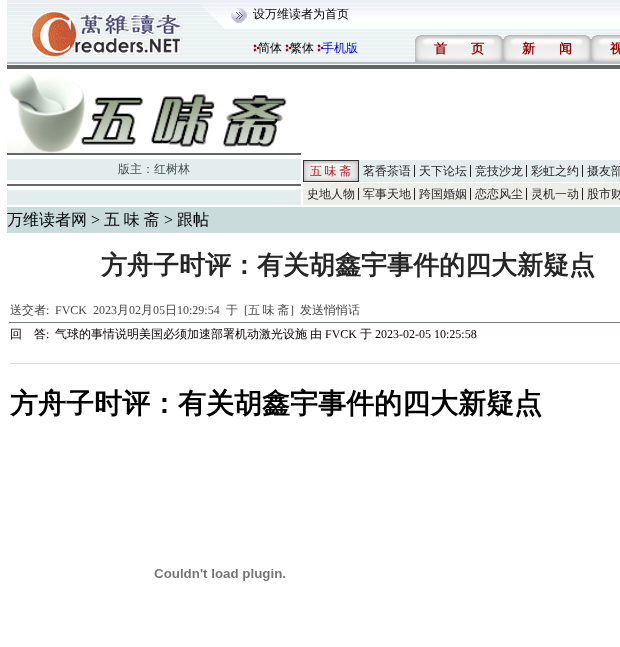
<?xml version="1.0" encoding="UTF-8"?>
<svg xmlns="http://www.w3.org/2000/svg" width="620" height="647">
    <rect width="100%" height="100%" fill="#FFFFFF"/>
    <image x="7" y="0" width="613" height="62" href="img_01.png"/>
    <image x="7" y="4" width="240" height="54" href="img_02.png"/>
    <text x="253" y="18" font-family="WenQuanYi Zen Hei" font-size="12" font-weight="500" fill="#000000">设万维读者为首页</text>
    <image x="253" y="44" width="7" height="8" href="img_03.png"/>
    <text x="258" y="52" font-family="WenQuanYi Zen Hei" font-size="12" font-weight="500" fill="#000000">简体</text>
    <image x="285" y="44" width="7" height="8" href="img_03.png"/>
    <text x="290" y="52" font-family="WenQuanYi Zen Hei" font-size="12" font-weight="500" fill="#000000">繁体</text>
    <image x="317" y="44" width="7" height="8" href="img_03.png"/>
    <text x="322" y="52" font-family="WenQuanYi Zen Hei" font-size="12" font-weight="500" fill="#0000FF">手机版</text>
    <image x="415" y="35" width="88" height="27" href="img_04.png"/>
    <text x="434" y="53" font-family="WenQuanYi Zen Hei" font-size="13" font-weight="700" fill="#990000">首</text>
    <text x="471" y="53" font-family="WenQuanYi Zen Hei" font-size="13" font-weight="700" fill="#990000">页</text>
    <image x="503" y="35" width="88" height="27" href="img_04.png"/>
    <text x="522" y="53" font-family="WenQuanYi Zen Hei" font-size="13" font-weight="700" fill="#990000">新</text>
    <text x="559" y="53" font-family="WenQuanYi Zen Hei" font-size="13" font-weight="700" fill="#990000">闻</text>
    <image x="591" y="35" width="29" height="27" href="img_05.png"/>
    <text x="610" y="53" font-family="WenQuanYi Zen Hei" font-size="13" font-weight="700" fill="#990000">视</text>
    <rect x="7" y="62" width="613" height="2" fill="#B7BFCA"/>
    <rect x="7" y="65" width="613" height="4" fill="#636767"/>
    <image x="7" y="73" width="280" height="80" href="img_06.png"/>
    <rect x="7" y="153" width="294" height="2" fill="#636767"/>
    <rect x="7" y="159" width="294" height="21" fill="#E3EDED"/>
    <text x="118" y="173" font-family="WenQuanYi Zen Hei" font-size="12" font-weight="500" fill="#455151">版主：红树林</text>
    <rect x="7" y="184" width="294" height="2" fill="#636767"/>
    <rect x="7" y="190" width="294" height="15" fill="#E3EDED"/>
    <rect x="359" y="160" width="261" height="22" fill="#E3EDED"/>
    <image x="303" y="160" width="56" height="22" href="img_07.png"/>
    <text x="310" y="175" word-spacing="-1" font-family="WenQuanYi Zen Hei" font-size="12" font-weight="500" fill="#B81515">五 味 斋</text>
    <rect x="414" y="165" width="1" height="12" fill="#231E21"/>
    <text x="363" y="175" font-family="WenQuanYi Zen Hei" font-size="12" font-weight="500" fill="#231E21">茗香茶语</text>
    <rect x="470" y="165" width="1" height="12" fill="#231E21"/>
    <text x="419" y="175" font-family="WenQuanYi Zen Hei" font-size="12" font-weight="500" fill="#231E21">天下论坛</text>
    <rect x="526" y="165" width="1" height="12" fill="#231E21"/>
    <text x="475" y="175" font-family="WenQuanYi Zen Hei" font-size="12" font-weight="500" fill="#231E21">竞技沙龙</text>
    <rect x="582" y="165" width="1" height="12" fill="#231E21"/>
    <text x="531" y="175" font-family="WenQuanYi Zen Hei" font-size="12" font-weight="500" fill="#231E21">彩虹之约</text>
    <text x="587" y="175" font-family="WenQuanYi Zen Hei" font-size="12" font-weight="500" fill="#231E21">摄友部</text>
    <rect x="303" y="183" width="317" height="22" fill="#EEEEE8"/>
    <rect x="358" y="188" width="1" height="12" fill="#231E21"/>
    <text x="307" y="198" font-family="WenQuanYi Zen Hei" font-size="12" font-weight="500" fill="#231E21">史地人物</text>
    <rect x="414" y="188" width="1" height="12" fill="#231E21"/>
    <text x="363" y="198" font-family="WenQuanYi Zen Hei" font-size="12" font-weight="500" fill="#231E21">军事天地</text>
    <rect x="470" y="188" width="1" height="12" fill="#231E21"/>
    <text x="419" y="198" font-family="WenQuanYi Zen Hei" font-size="12" font-weight="500" fill="#231E21">跨国婚姻</text>
    <rect x="526" y="188" width="1" height="12" fill="#231E21"/>
    <text x="475" y="198" font-family="WenQuanYi Zen Hei" font-size="12" font-weight="500" fill="#231E21">恋恋风尘</text>
    <rect x="582" y="188" width="1" height="12" fill="#231E21"/>
    <text x="531" y="198" font-family="WenQuanYi Zen Hei" font-size="12" font-weight="500" fill="#231E21">灵机一动</text>
    <text x="587" y="198" font-family="WenQuanYi Zen Hei" font-size="12" font-weight="500" fill="#231E21">股市财</text>
    <rect x="7" y="207" width="613" height="26" fill="#C9DBDB"/>
    <text x="7" y="225" font-family="WenQuanYi Zen Hei" font-size="16" font-weight="500" fill="#000000">万维读者网</text>
    <text x="91" y="225" font-family="Liberation Serif" font-size="16" fill="#000000">&gt;</text>
    <text x="104" y="225" word-spacing="-1" font-family="WenQuanYi Zen Hei" font-size="16" font-weight="500" fill="#000000">五 味 斋</text>
    <text x="164" y="225" font-family="Liberation Serif" font-size="16" fill="#000000">&gt;</text>
    <text x="177" y="225" font-family="WenQuanYi Zen Hei" font-size="16" font-weight="500" fill="#000000">跟帖</text>
    <text x="101" y="274" font-family="WenQuanYi Zen Hei" font-size="26" font-weight="700" fill="#252525">方舟子时评：有关胡鑫宇事件的四大新疑点</text>
    <text x="10" y="314" font-family="WenQuanYi Zen Hei" font-size="12" font-weight="500" fill="#464646">送交者</text>
    <text x="46" y="314" font-family="Liberation Serif" font-size="12" fill="#464646">:</text>
    <text x="55" y="314" font-family="Liberation Serif" font-size="12" fill="#464646">FVCK</text>
    <text x="93" y="314" font-family="Liberation Serif" font-size="12" fill="#464646">2023</text>
    <text x="117" y="314" font-family="WenQuanYi Zen Hei" font-size="12" font-weight="500" fill="#464646">月</text>
    <text x="129" y="314" font-family="Liberation Serif" font-size="12" fill="#464646">02</text>
    <text x="141" y="314" font-family="WenQuanYi Zen Hei" font-size="12" font-weight="500" fill="#464646">月</text>
    <text x="153" y="314" font-family="Liberation Serif" font-size="12" fill="#464646">05</text>
    <text x="165" y="314" font-family="WenQuanYi Zen Hei" font-size="12" font-weight="500" fill="#464646">日</text>
    <text x="177" y="314" font-family="Liberation Serif" font-size="12" fill="#464646">10:29:54</text>
    <text x="226" y="314" font-family="WenQuanYi Zen Hei" font-size="12" font-weight="500" fill="#464646">于</text>
    <text x="244" y="314" font-family="Liberation Serif" font-size="12" fill="#464646">[</text>
    <text x="248" y="314" word-spacing="-1" font-family="WenQuanYi Zen Hei" font-size="12" font-weight="500" fill="#464646">五 味 斋</text>
    <text x="290" y="314" font-family="Liberation Serif" font-size="12" fill="#464646">]</text>
    <text x="300" y="314" font-family="WenQuanYi Zen Hei" font-size="12" font-weight="500" fill="#464646">发送悄悄话</text>
    <rect x="9" y="322" width="611" height="1" fill="#788181"/>
    <text x="10" y="338" font-family="WenQuanYi Zen Hei" font-size="12" font-weight="500" fill="#000000">回</text>
    <text x="34" y="338" font-family="WenQuanYi Zen Hei" font-size="12" font-weight="500" fill="#000000">答</text>
    <text x="46" y="338" font-family="Liberation Serif" font-size="12" fill="#000000">:</text>
    <text x="55" y="338" font-family="WenQuanYi Zen Hei" font-size="12" font-weight="500" fill="#000000">气球的事情说明美国必须加速部署机动激光设施</text>
    <text x="310" y="338" font-family="WenQuanYi Zen Hei" font-size="12" font-weight="500" fill="#000000">由</text>
    <text x="325" y="338" font-family="Liberation Serif" font-size="12" fill="#000000">FVCK</text>
    <text x="360" y="338" font-family="WenQuanYi Zen Hei" font-size="12" font-weight="500" fill="#000000">于</text>
    <text x="375" y="338" font-family="Liberation Serif" font-size="12" fill="#000000">2023-02-05 10:25:58</text>
    <rect x="10" y="363" width="610" height="1" fill="#DDDDDD"/>
    <text x="10" y="413" font-family="WenQuanYi Zen Hei" font-size="28" font-weight="700" fill="#000000">方舟子时评：有关胡鑫宇事件的四大新疑点</text>
    <image x="154" y="569" width="131" height="12" href="img_08.png"/>
</svg>
